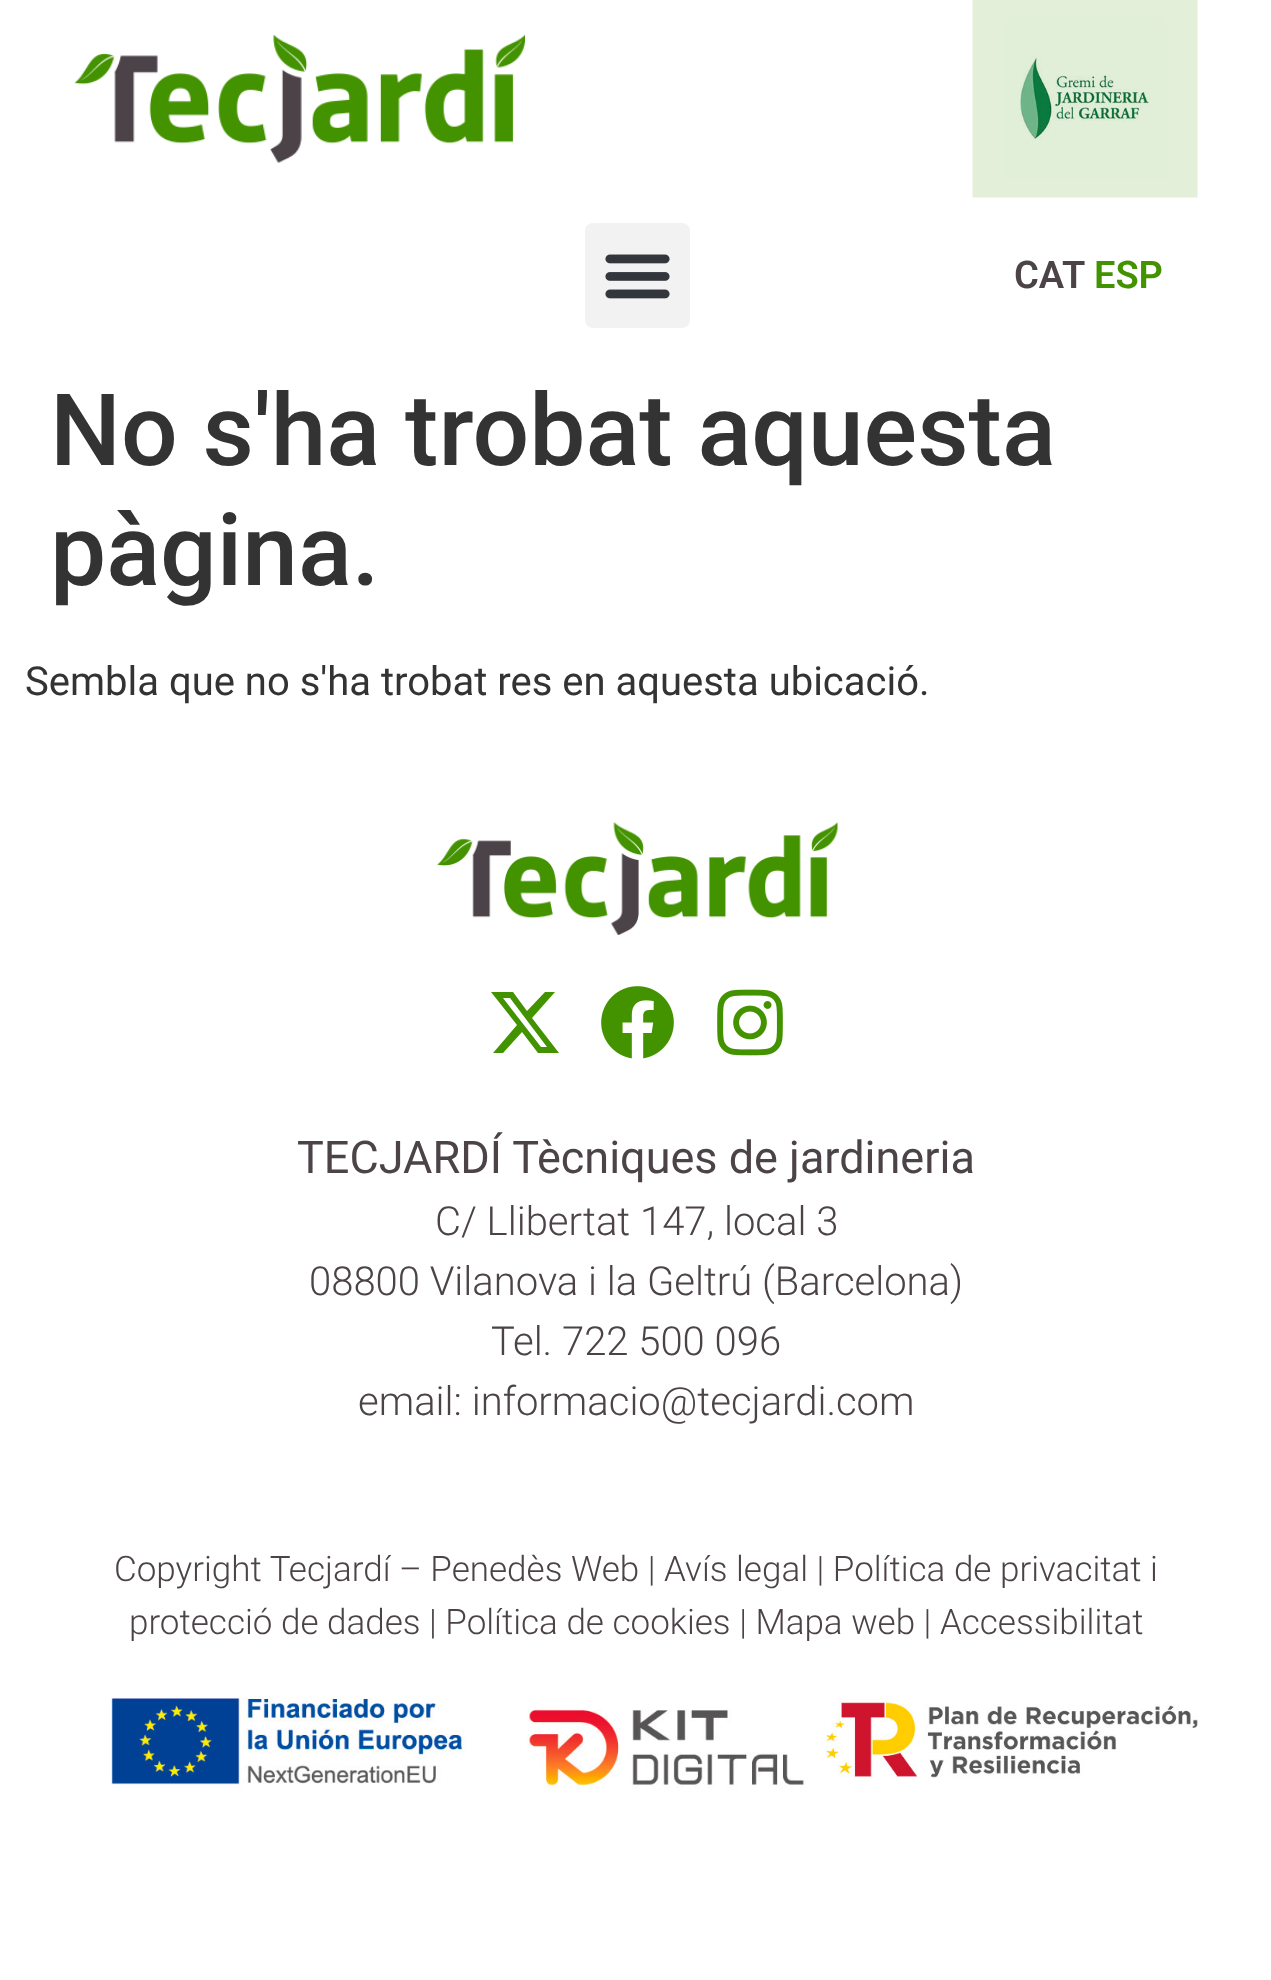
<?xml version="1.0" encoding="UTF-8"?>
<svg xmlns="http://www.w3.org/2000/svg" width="1271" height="1980">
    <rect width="100%" height="100%" fill="#FFFFFF"/>
    <image x="75" y="35" width="450" height="128" href="img_01.png"/>
    <image x="972" y="0" width="226" height="198" href="img_02.png"/>
    <rect x="585" y="223" width="105" height="105" rx="8" fill="#F2F2F2"/>
    <image x="605" y="254" width="65" height="45" href="img_03.png"/>
    <text x="1014" y="288" font-family="Roboto" font-size="38" font-weight="600" fill="#4C4348">CAT</text>
    <text x="1094" y="288" font-family="Roboto" font-size="38" font-weight="600" fill="#439300">ESP</text>
    <text font-family="Roboto" font-size="100" font-weight="500" fill="#333333">
        <tspan x="50" y="465">No s'ha trobat aquesta</tspan>
        <tspan x="50" y="585">pàgina.</tspan>
    </text>
    <text x="25" y="695" font-family="Roboto" font-size="40" fill="#333333">Sembla que no s'ha trobat res en aquesta ubicació.</text>
    <image x="437" y="822" width="401" height="113" href="img_04.png"/>
    <path d="M 545 992 H 555 L 532 1018 L 559 1053 H 538 L 522 1032 L 503 1053 H 493 L 517 1025 L 491 992 H 513 L 527 1011 Z M 541 1047 H 547 L 510 998 H 503 Z" fill="#439300"/>
    <image x="601" y="986" width="73" height="73" href="img_05.png"/>
    <image x="717" y="989" width="66" height="67" href="img_06.png"/>
    <text x="297" y="1173" font-family="Roboto" font-size="45" fill="#4C4348">TECJARDÍ Tècniques de jardineria</text>
    <text x="435" y="1235" font-family="Roboto" font-size="40" font-weight="300" fill="#4C4348">C/ Llibertat 147, local 3</text>
    <text x="309" y="1295" font-family="Roboto" font-size="40" font-weight="300" fill="#4C4348">08800 Vilanova i la Geltrú (Barcelona)</text>
    <text x="491" y="1355" font-family="Roboto" font-size="40" font-weight="300" fill="#4C4348">Tel. 722 500 096</text>
    <text x="358" y="1415" font-family="Roboto" font-size="40" font-weight="300" fill="#4C4348">email: informacio@tecjardi.com</text>
    <text x="114" y="1581" font-family="Roboto" font-size="35" font-weight="300" fill="#4C4348">Copyright Tecjardí – Penedès Web | Avís legal | Política de privacitat i</text>
    <text x="129" y="1634" font-family="Roboto" font-size="35" font-weight="300" fill="#4C4348">protecció de dades | Política de cookies | Mapa web | Accessibilitat</text>
    <image x="110" y="1697" width="1088" height="93" href="img_07.png"/>
</svg>
